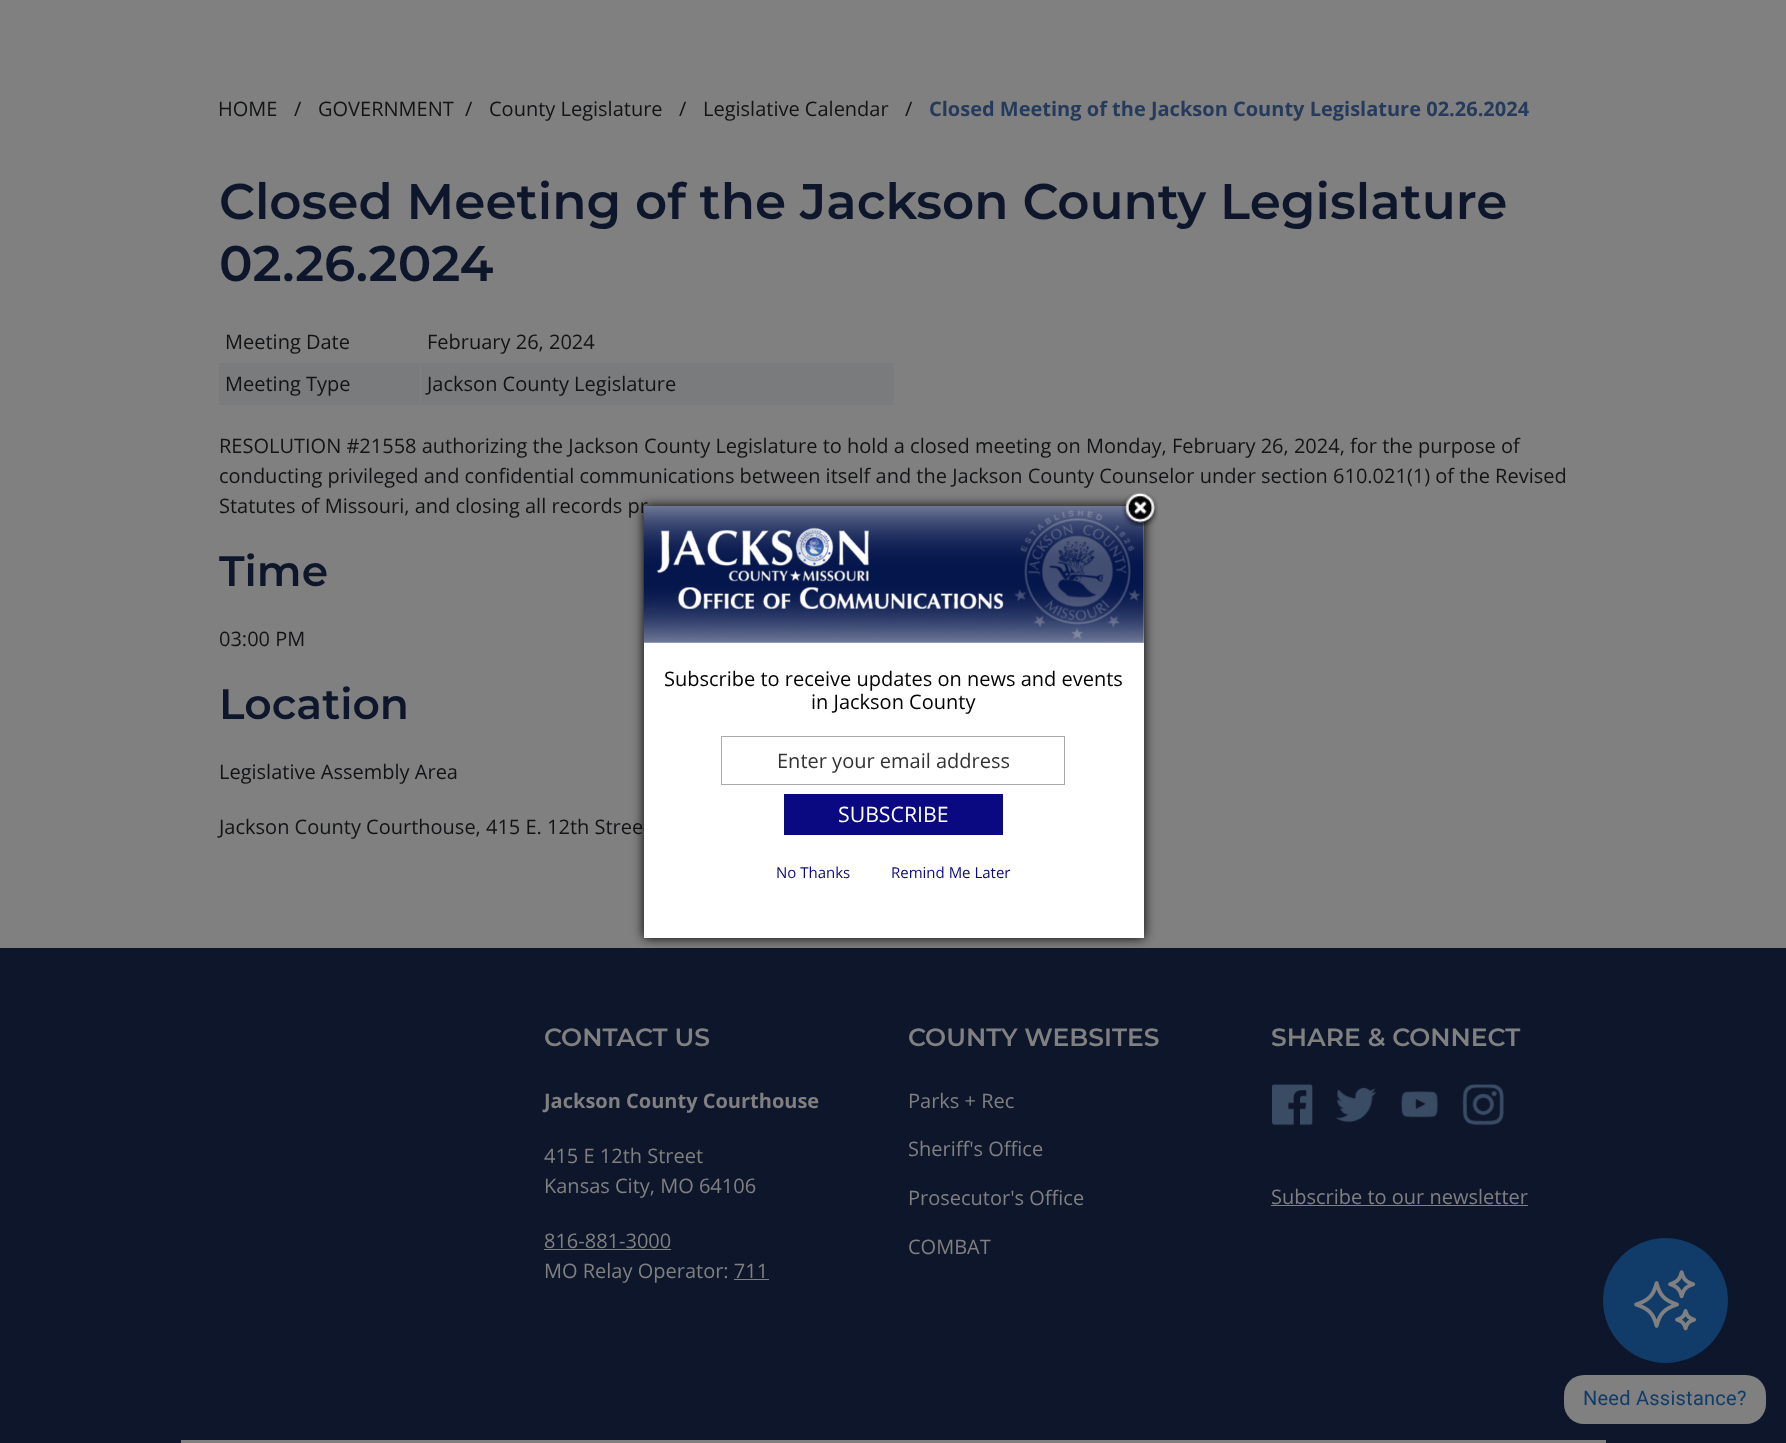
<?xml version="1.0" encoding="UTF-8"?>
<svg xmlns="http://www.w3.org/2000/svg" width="1786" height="1443">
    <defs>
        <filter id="blur1" x="-50%" y="-200%" width="200%" height="500%"><feGaussianBlur stdDeviation="6"/></filter>
    </defs>
    <rect width="100%" height="100%" fill="#808080"/>
    <text x="218" y="116" font-family="Open Sans" font-size="20" fill="#121315">HOME</text>
    <text x="294" y="116" font-family="Open Sans" font-size="20" fill="#121315">/</text>
    <text x="318" y="116" font-family="Open Sans" font-size="20" fill="#121315">GOVERNMENT</text>
    <text x="465" y="116" font-family="Open Sans" font-size="20" fill="#121315">/</text>
    <text x="489" y="116" font-family="Open Sans" font-size="20" fill="#121315">County Legislature</text>
    <text x="679" y="116" font-family="Open Sans" font-size="20" fill="#121315">/</text>
    <text x="703" y="116" font-family="Open Sans" font-size="20" fill="#121315">Legislative Calendar</text>
    <text x="905" y="116" font-family="Open Sans" font-size="20" fill="#121315">/</text>
    <text x="929" y="116" font-family="Open Sans" font-size="20" font-weight="700" fill="#253B5D">Closed Meeting of the Jackson County Legislature 02.26.2024</text>
    <text font-family="Montserrat" font-size="50" font-weight="100" fill="#0D162B">
        <tspan x="219" y="219">Closed Meeting of the Jackson County Legislature</tspan>
        <tspan x="219" y="281">02.26.2024</tspan>
    </text>
    <text x="225" y="349" font-family="Open Sans" font-size="20" fill="#121315">Meeting Date</text>
    <text x="427" y="349" font-family="Open Sans" font-size="20" fill="#121315">February 26, 2024</text>
    <rect x="219" y="363" width="675" height="42" fill="#7A7B7C"/>
    <rect x="420" y="363" width="1" height="42" fill="#808080"/>
    <text x="225" y="391" font-family="Open Sans" font-size="20" fill="#121315">Meeting Type</text>
    <text x="427" y="391" font-family="Open Sans" font-size="20" fill="#121315">Jackson County Legislature</text>
    <text font-family="Open Sans" font-size="20" fill="#121315">
        <tspan x="219" y="453">RESOLUTION #21558 authorizing the Jackson County Legislature to hold a closed meeting on Monday, February 26, 2024, for the purpose of</tspan>
        <tspan x="219" y="483">conducting privileged and confidential communications between itself and the Jackson County Counselor under section 610.021(1) of the Revised</tspan>
        <tspan x="219" y="513">Statutes of Missouri, and closing all records pr</tspan>
    </text>
    <text x="219" y="586" font-family="Montserrat" font-size="42.5" font-weight="100" fill="#0D162B">Time</text>
    <text x="219" y="646" font-family="Open Sans" font-size="20" fill="#121315">03:00 PM</text>
    <text x="219" y="719" font-family="Montserrat" font-size="42.5" font-weight="100" fill="#0D162B">Location</text>
    <text x="219" y="779" font-family="Open Sans" font-size="20" fill="#121315">Legislative Assembly Area</text>
    <text x="219" y="834" font-family="Open Sans" font-size="20" fill="#121315">Jackson County Courthouse, 415 E. 12th Stree</text>
    <rect x="0" y="948" width="1786" height="495" fill="#0D162B"/>
    <text x="544" y="1046" font-family="Montserrat" font-size="25" font-weight="100" fill="#808080">CONTACT US</text>
    <text x="544" y="1108" font-family="Open Sans" font-size="20" font-weight="700" fill="#808080">Jackson County Courthouse</text>
    <text font-family="Open Sans" font-size="20" fill="#808080">
        <tspan x="544" y="1163">415 E 12th Street</tspan>
        <tspan x="544" y="1193">Kansas City, MO 64106</tspan>
    </text>
    <text x="544" y="1248" font-family="Open Sans" font-size="20" fill="#808080">816-881-3000</text>
    <rect x="544" y="1249" width="127" height="1" fill="#808080"/>
    <text x="544" y="1278" font-family="Open Sans" font-size="20" fill="#808080">MO Relay Operator: 711</text>
    <rect x="734" y="1279" width="35" height="1" fill="#808080"/>
    <text x="908" y="1046" font-family="Montserrat" font-size="25" font-weight="100" fill="#808080">COUNTY WEBSITES</text>
    <text x="908" y="1108" font-family="Open Sans" font-size="20" fill="#808080">Parks + Rec</text>
    <text x="908" y="1156" font-family="Open Sans" font-size="20" fill="#808080">Sheriff's Office</text>
    <text x="908" y="1205" font-family="Open Sans" font-size="20" fill="#808080">Prosecutor's Office</text>
    <text x="908" y="1254" font-family="Open Sans" font-size="20" fill="#808080">COMBAT</text>
    <text x="1271" y="1046" font-family="Montserrat" font-size="25" font-weight="100" fill="#808080">SHARE &amp; CONNECT</text>
    <image x="1272" y="1084" width="41" height="42" href="img_01.png"/>
    <image x="1335" y="1087" width="41" height="36" href="img_02.png"/>
    <image x="1401" y="1091" width="37" height="27" href="img_03.png"/>
    <image x="1462" y="1084" width="42" height="42" href="img_04.png"/>
    <text x="1271" y="1204" font-family="Open Sans" font-size="20" fill="#808080">Subscribe to our newsletter</text>
    <rect x="1271" y="1205" width="257" height="1" fill="#808080"/>
    <rect x="181" y="1440" width="1425" height="3" fill="#808080"/>
    <rect x="644" y="506" width="500" height="432" fill="#000000" filter="url(#blur1)"/>
    <rect x="644" y="506" width="500" height="432" fill="#FFFFFF"/>
    <image x="643" y="506" width="501" height="137" href="img_06.png"/>
    <image x="1122" y="492" width="36" height="35" href="img_05.png"/>
    <text x="664" y="686" font-family="Open Sans" font-size="20" fill="#000000">Subscribe to receive updates on news and events</text>
    <text x="811" y="709" font-family="Open Sans" font-size="20" fill="#000000">in Jackson County</text>
    <rect x="721.5" y="736.5" width="343" height="48" fill="none" stroke="#AAAAAA"/>
    <text x="777" y="768" font-family="Open Sans" font-size="20" fill="#333333">Enter your email address</text>
    <rect x="784" y="794" width="219" height="41" fill="#0B0981"/>
    <text x="838" y="822" font-family="Open Sans" font-size="21.25" fill="#FFFFFF">SUBSCRIBE</text>
    <text x="776" y="878" font-family="Open Sans" font-size="15" fill="#0B0981">No Thanks</text>
    <text x="891" y="878" font-family="Open Sans" font-size="15" fill="#0B0981">Remind Me Later</text>
    <circle cx="1665.5" cy="1300.5" r="62.5" fill="#113B69"/>
    <image x="1634" y="1270" width="62" height="61" href="img_07.png"/>
    <rect x="1564" y="1375" width="202" height="49" rx="20" fill="#808080"/>
    <text x="1583" y="1405" font-family="Roboto" font-size="20" letter-spacing="0.25" fill="#113B69">Need Assistance?</text>
</svg>
